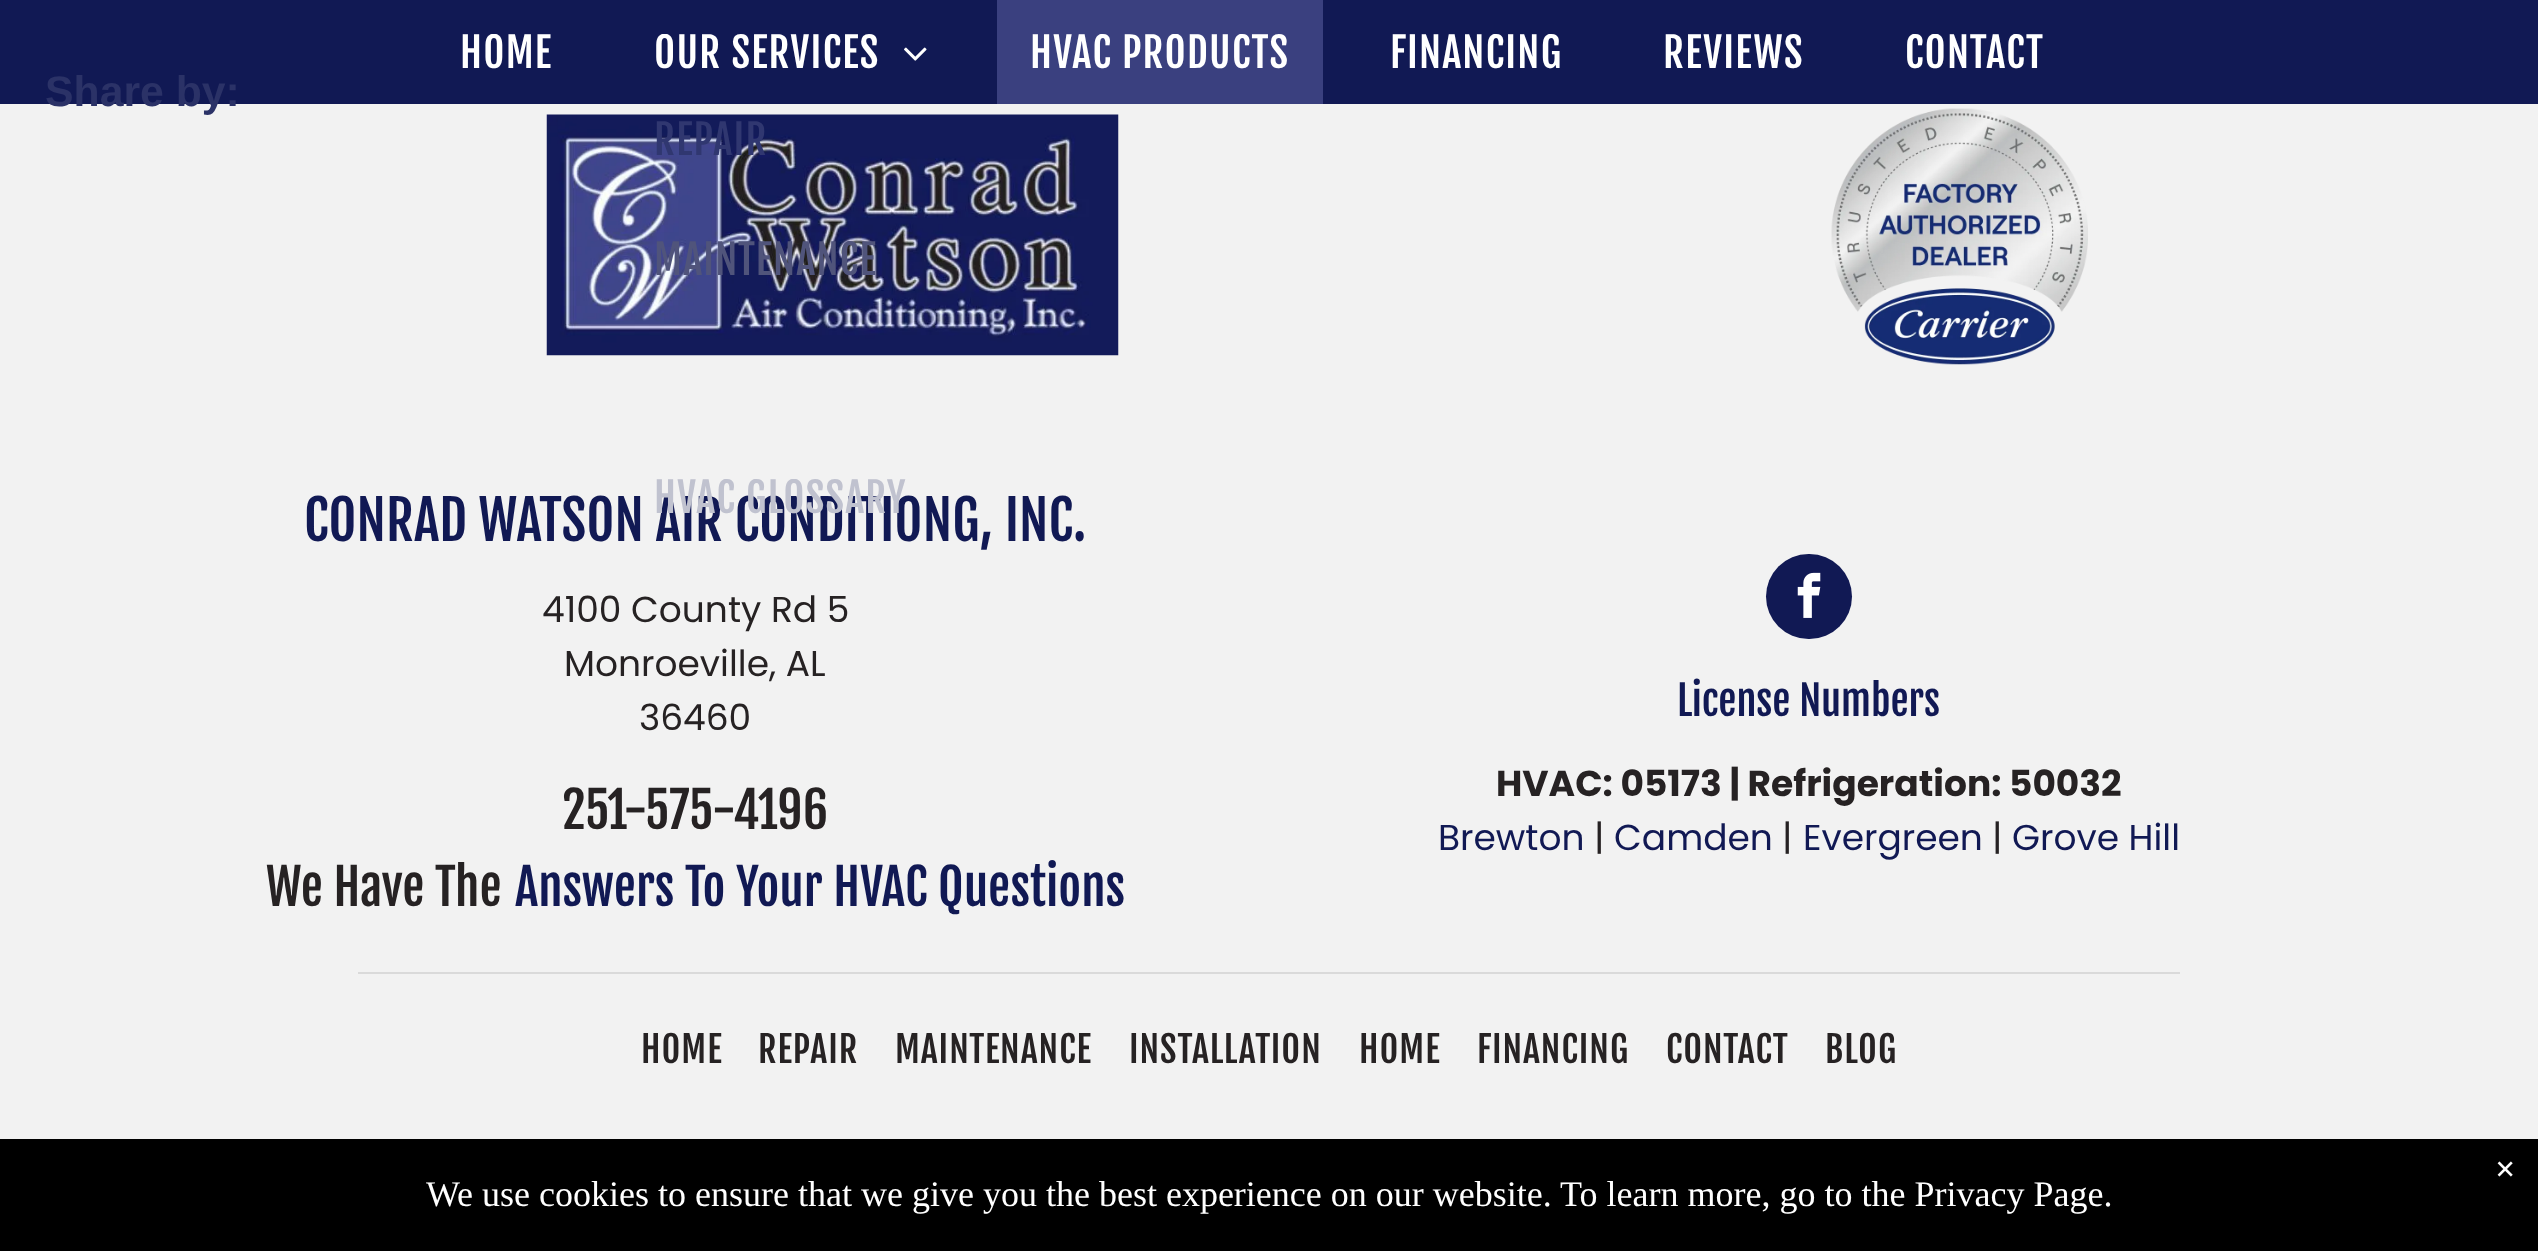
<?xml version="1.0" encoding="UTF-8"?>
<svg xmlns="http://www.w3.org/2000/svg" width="2538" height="1251">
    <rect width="100%" height="100%" fill="#F2F2F2"/>
    <rect x="0" y="0" width="2538" height="104" fill="#111954"/>
    <text x="45" y="106" font-family="Liberation Sans" font-size="42.75" font-weight="700" fill="#2B3267">Share by:</text>
    <text x="460" y="68" font-family="Fjalla One" font-size="40.5" letter-spacing="1.25" fill="#FFFFFF">HOME</text>
    <text x="654" y="68" font-family="Fjalla One" font-size="40.5" letter-spacing="1.25" fill="#FFFFFF">OUR SERVICES</text>
    <image x="904" y="47" width="23" height="14" href="img_01.png"/>
    <image x="546" y="114" width="573" height="242" href="img_02.png"/>
    <text x="654" y="155" font-family="Fjalla One" font-size="40.5" letter-spacing="1.25" fill="#303770">REPAIR</text>
    <text x="654" y="275" font-family="Fjalla One" font-size="40.5" letter-spacing="1.25" fill="#50547B">MAINTENANCE</text>
    <text x="304" y="541" font-family="Fjalla One" font-size="54" fill="#111954">CONRAD WATSON AIR CONDITIONG, INC.</text>
    <text x="654" y="513" font-family="Fjalla One" font-size="40.5" letter-spacing="1.25" fill="#C0C2CF">HVAC GLOSSARY</text>
    <rect x="997" y="0" width="326" height="104" fill="#3A407F"/>
    <text x="1030" y="68" font-family="Fjalla One" font-size="40.5" letter-spacing="1.25" fill="#FFFFFF">HVAC PRODUCTS</text>
    <text x="1390" y="68" font-family="Fjalla One" font-size="40.5" letter-spacing="1.25" fill="#FFFFFF">FINANCING</text>
    <text x="1663" y="68" font-family="Fjalla One" font-size="40.5" letter-spacing="1.25" fill="#FFFFFF">REVIEWS</text>
    <text x="1905" y="68" font-family="Fjalla One" font-size="40.5" letter-spacing="1.25" fill="#FFFFFF">CONTACT</text>
    <image x="1831" y="108" width="257" height="257" href="img_03.png"/>
    <text x="542" y="622" font-family="Poppins" font-size="36" fill="#262223">4100 County Rd 5</text>
    <text x="564" y="676" font-family="Poppins" font-size="36" fill="#262223">Monroeville, AL</text>
    <text x="639" y="730" font-family="Poppins" font-size="36" fill="#262223">36460</text>
    <text x="562" y="829" font-family="Fjalla One" font-size="49.5" fill="#262223">251-575-4196</text>
    <text x="266" y="906" font-family="Fjalla One" font-size="49.5" fill="#262223">We Have The</text>
    <text x="515" y="906" font-family="Fjalla One" font-size="49.5" fill="#111954">Answers To Your HVAC Questions</text>
    <rect x="1766" y="554" width="86" height="85" rx="42.5" fill="#111954"/>
    <image x="1797" y="572" width="24" height="46" href="img_04.png"/>
    <text x="1677" y="716" font-family="Fjalla One" font-size="40.5" fill="#111954">License Numbers</text>
    <text x="1496" y="796" font-family="Poppins" font-size="36" font-weight="700" fill="#262223">HVAC: 05173 | Refrigeration: 50032</text>
    <text x="1438" y="850" font-family="Poppins" font-size="36" fill="#111954">Brewton</text>
    <text x="1594" y="850" font-family="Poppins" font-size="36" fill="#262223">|</text>
    <text x="1614" y="850" font-family="Poppins" font-size="36" fill="#111954">Camden</text>
    <text x="1782" y="850" font-family="Poppins" font-size="36" fill="#262223">|</text>
    <text x="1803" y="850" font-family="Poppins" font-size="36" fill="#111954">Evergreen</text>
    <text x="1992" y="850" font-family="Poppins" font-size="36" fill="#262223">|</text>
    <text x="2012" y="850" font-family="Poppins" font-size="36" fill="#111954">Grove Hill</text>
    <rect x="358" y="972" width="1822" height="2" fill="#DADADA"/>
    <text x="641" y="1063" font-family="Fjalla One" font-size="36" letter-spacing="1" fill="#262223">HOME</text>
    <text x="758" y="1063" font-family="Fjalla One" font-size="36" letter-spacing="1" fill="#262223">REPAIR</text>
    <text x="895" y="1063" font-family="Fjalla One" font-size="36" letter-spacing="1" fill="#262223">MAINTENANCE</text>
    <text x="1129" y="1063" font-family="Fjalla One" font-size="36" letter-spacing="1" fill="#262223">INSTALLATION</text>
    <text x="1359" y="1063" font-family="Fjalla One" font-size="36" letter-spacing="1" fill="#262223">HOME</text>
    <text x="1477" y="1063" font-family="Fjalla One" font-size="36" letter-spacing="1" fill="#262223">FINANCING</text>
    <text x="1666" y="1063" font-family="Fjalla One" font-size="36" letter-spacing="1" fill="#262223">CONTACT</text>
    <text x="1825" y="1063" font-family="Fjalla One" font-size="36" letter-spacing="1" fill="#262223">BLOG</text>
    <rect x="0" y="1139" width="2538" height="112" fill="#000000"/>
    <text x="2495" y="1181" font-family="Liberation Serif" font-size="36" font-weight="700" fill="#FFFFFF">×</text>
    <text x="426" y="1206" font-family="Liberation Serif" font-size="36" fill="#FFFFFF">We use cookies to ensure that we give you the best experience on our website. To learn more, go to the Privacy Page.</text>
</svg>
